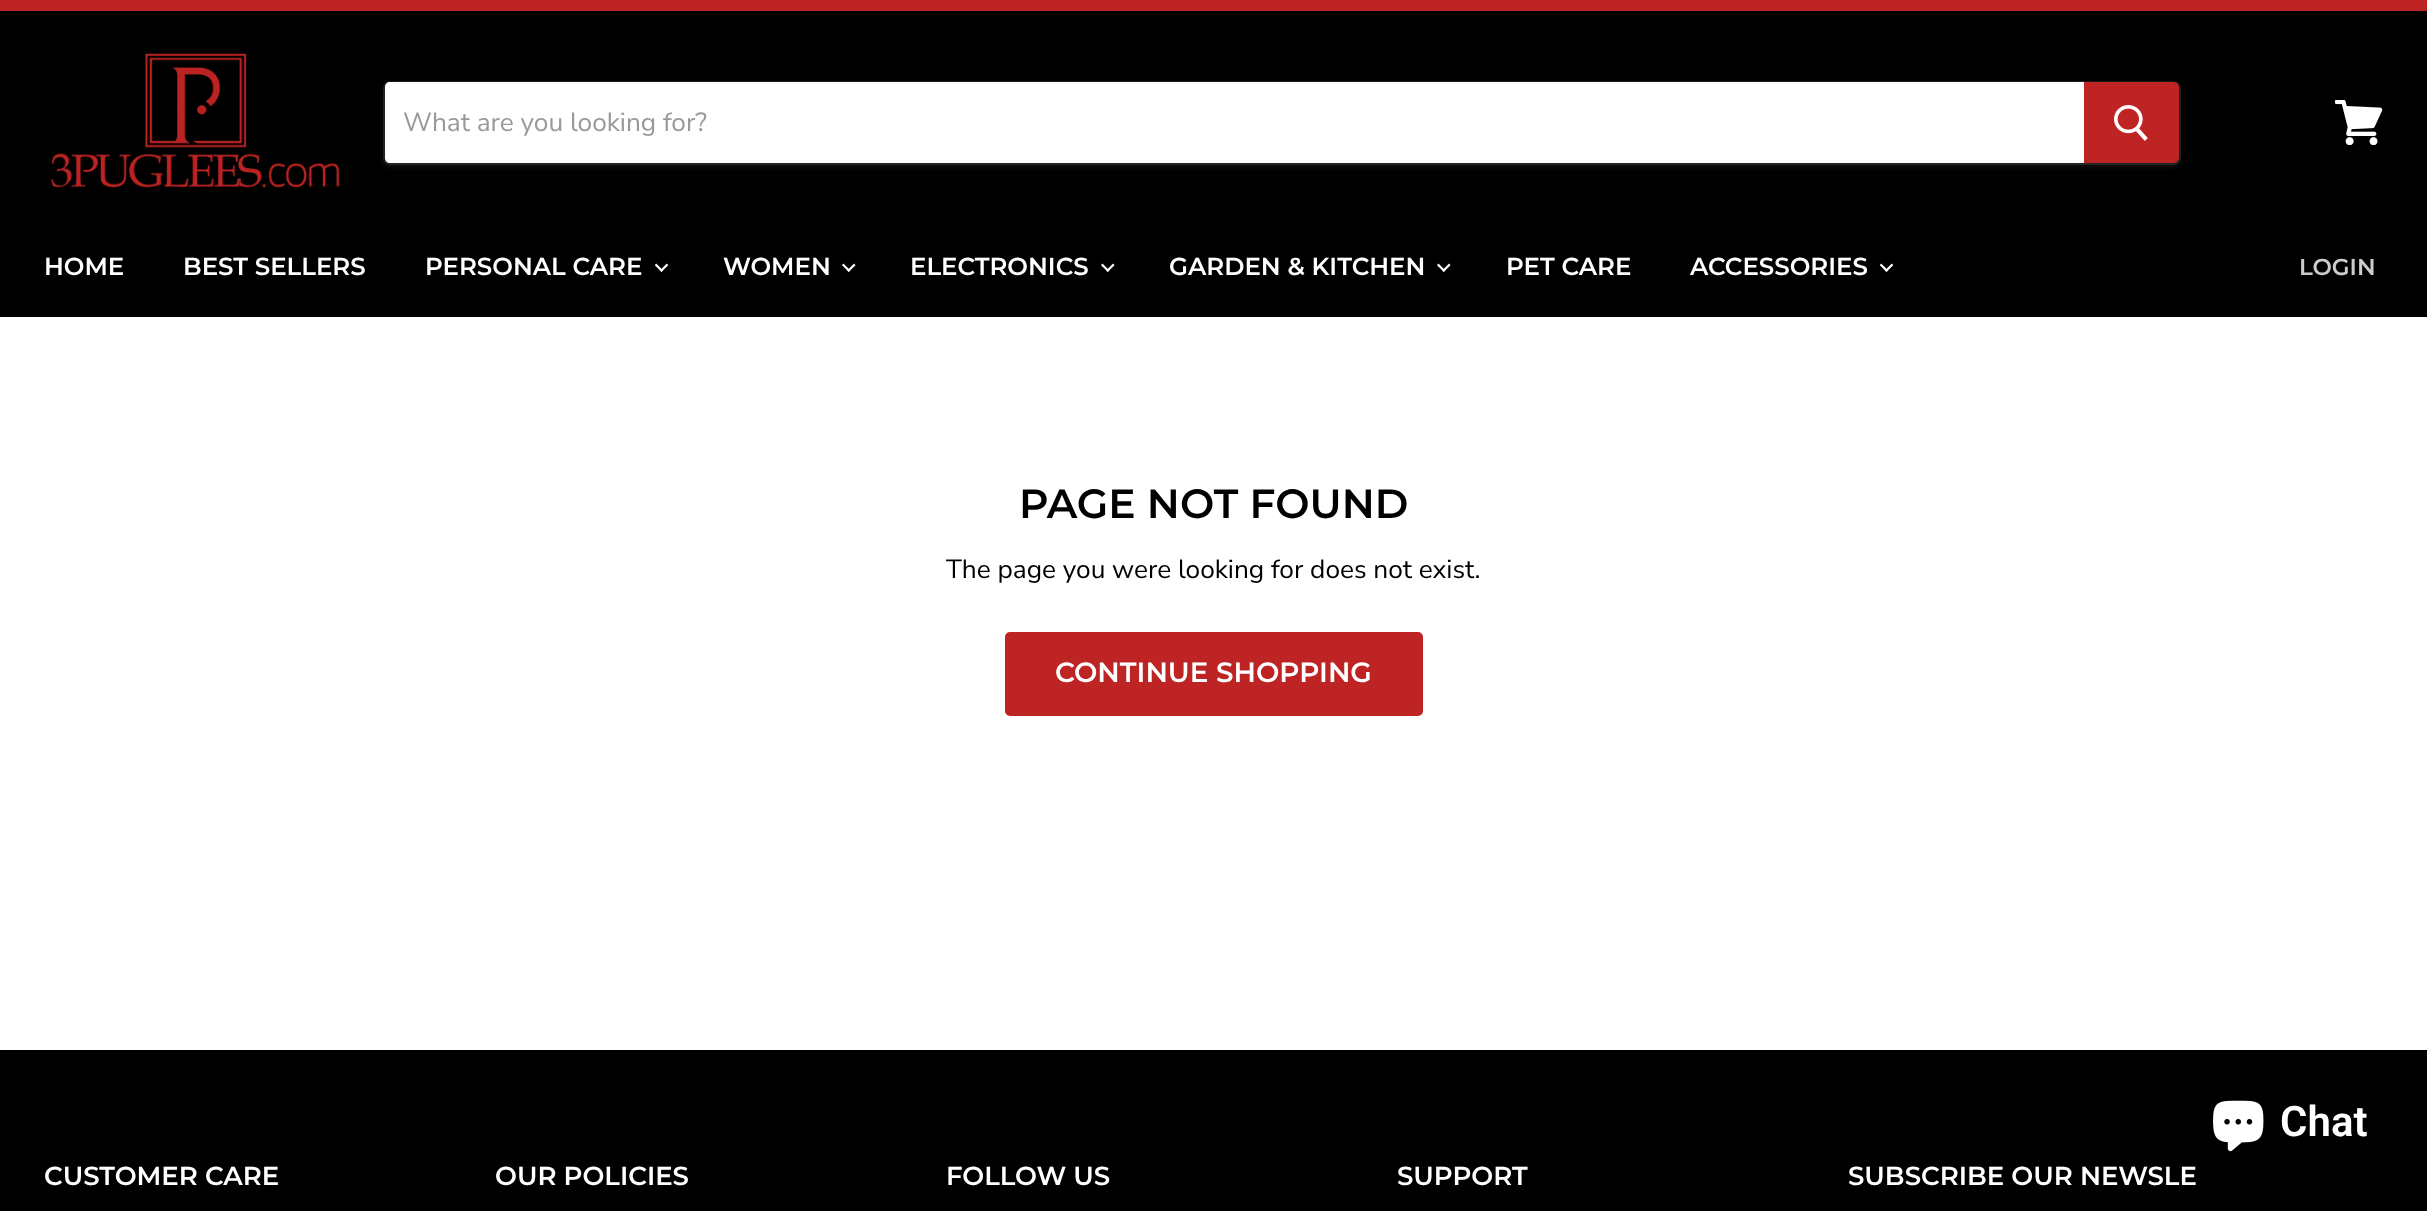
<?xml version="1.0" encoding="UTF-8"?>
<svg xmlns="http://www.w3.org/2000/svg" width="2427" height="1211">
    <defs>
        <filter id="blur1" x="-50%" y="-200%" width="200%" height="500%"><feGaussianBlur stdDeviation="2.5"/></filter>
    </defs>
    <rect width="100%" height="100%" fill="#FFFFFF"/>
    <rect x="0" y="0" width="2427" height="11" fill="#BD2423"/>
    <rect x="0" y="11" width="2427" height="306" fill="#000000"/>
    <image x="51" y="53" width="289" height="135" href="img_01.png"/>
    <rect x="383" y="84" width="1798" height="84" rx="7" fill="#808080" fill-opacity="0.11" filter="url(#blur1)"/>
    <rect x="384" y="82" width="1796" height="82" rx="6" fill="none" stroke="#808080" stroke-opacity="0.2" stroke-width="2"/>
    <path d="M 390 82 H 2084 V 163 H 390 C 387 163 385 161 385 158 V 87 C 385 84 387 82 390 82 Z" fill="#FFFFFF"/>
    <text x="403" y="131" font-family="Nunito Sans" font-size="26.25" fill="#999999">What are you looking for?</text>
    <path d="M 2085 83 H 2174 C 2176 83 2178 85 2178 87 V 158 C 2178 160 2176 162 2174 162 H 2085 Z" fill="#BD2423" stroke="#BD2423" stroke-width="2"/>
    <image x="2114" y="105" width="34" height="36" href="img_02.png"/>
    <image x="2335" y="100" width="48" height="45" href="img_03.png"/>
    <text x="44" y="275" font-family="Montserrat" font-size="24.5" font-weight="600" fill="#FFFFFF">HOME</text>
    <text x="183" y="275" font-family="Montserrat" font-size="24.5" font-weight="600" fill="#FFFFFF">BEST SELLERS</text>
    <text x="425" y="275" font-family="Montserrat" font-size="24.5" font-weight="600" fill="#FFFFFF">PERSONAL CARE</text>
    <image x="655" y="263" width="14" height="9" href="img_04.png"/>
    <text x="723" y="275" font-family="Montserrat" font-size="24.5" font-weight="600" fill="#FFFFFF">WOMEN</text>
    <image x="842" y="263" width="14" height="9" href="img_05.png"/>
    <text x="910" y="275" font-family="Montserrat" font-size="24.5" font-weight="600" fill="#FFFFFF">ELECTRONICS</text>
    <image x="1101" y="263" width="14" height="9" href="img_05.png"/>
    <text x="1169" y="275" font-family="Montserrat" font-size="24.5" font-weight="600" fill="#FFFFFF">GARDEN &amp; KITCHEN</text>
    <image x="1437" y="263" width="14" height="9" href="img_05.png"/>
    <text x="1506" y="275" font-family="Montserrat" font-size="24.5" font-weight="600" fill="#FFFFFF">PET CARE</text>
    <text x="1690" y="275" font-family="Montserrat" font-size="24.5" font-weight="600" fill="#FFFFFF">ACCESSORIES</text>
    <image x="1880" y="263" width="14" height="9" href="img_04.png"/>
    <text x="2299" y="275" font-family="Montserrat" font-size="23" font-weight="600" fill="#CCCCCC">LOGIN</text>
    <text x="1019" y="518" font-family="Montserrat" font-size="40.75" font-weight="600" fill="#000000">PAGE NOT FOUND</text>
    <text x="946" y="578" font-family="Nunito Sans" font-size="26.25" fill="#000000">The page you were looking for does not exist.</text>
    <rect x="1006" y="633" width="416" height="82" rx="4" fill="#BD2423" stroke="#BD2423" stroke-width="2"/>
    <text x="1055" y="682" font-family="Montserrat" font-size="27.75" font-weight="600" fill="#FFFFFF">CONTINUE SHOPPING</text>
    <rect x="0" y="1050" width="2427" height="161" fill="#000000"/>
    <image x="2213" y="1100" width="51" height="52" href="img_06.png"/>
    <text x="2280" y="1136" font-family="Roboto" font-size="42" font-weight="600" fill="#FFFFFF">Chat</text>
    <text x="44" y="1185" font-family="Montserrat" font-size="26" font-weight="600" fill="#FFFFFF">CUSTOMER CARE</text>
    <text x="495" y="1185" font-family="Montserrat" font-size="26" font-weight="600" fill="#FFFFFF">OUR POLICIES</text>
    <text x="946" y="1185" font-family="Montserrat" font-size="26" font-weight="600" fill="#FFFFFF">FOLLOW US</text>
    <text x="1397" y="1185" font-family="Montserrat" font-size="26" font-weight="600" fill="#FFFFFF">SUPPORT</text>
    <text x="1848" y="1185" font-family="Montserrat" font-size="26" font-weight="600" fill="#FFFFFF">SUBSCRIBE OUR NEWSLE</text>
</svg>
